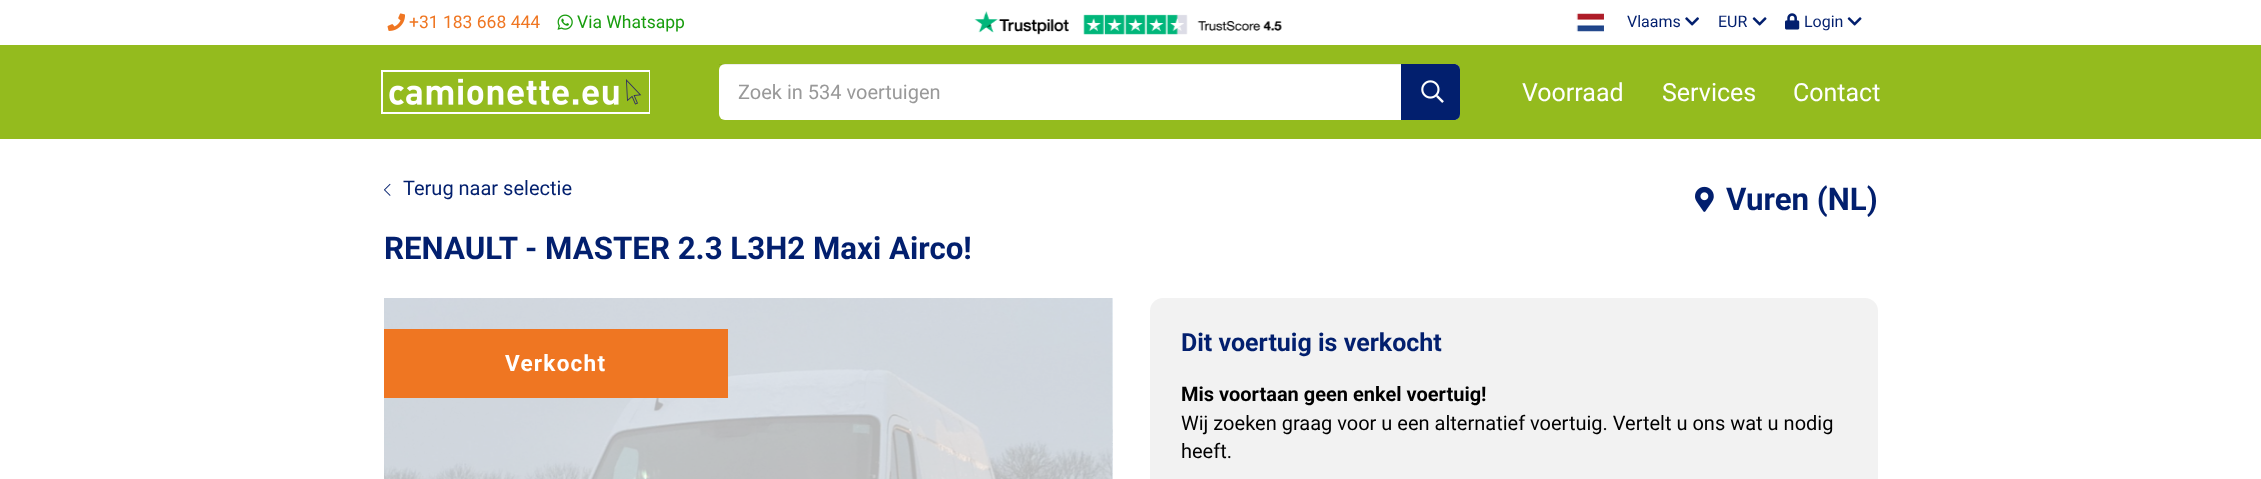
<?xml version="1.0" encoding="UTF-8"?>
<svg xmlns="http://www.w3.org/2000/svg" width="2261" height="479">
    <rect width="100%" height="100%" fill="#FFFFFF"/>
    <rect x="0" y="45" width="2261" height="94" fill="#94BB1E"/>
    <image x="387" y="13" width="18" height="18" href="img_01.png"/>
    <text x="409" y="28" font-family="Roboto" font-size="17.5" fill="#EF7622">+31 183 668 444</text>
    <image x="557" y="14" width="16" height="16" href="img_02.png"/>
    <text x="577" y="28" font-family="Roboto" font-size="17.5" fill="#189D0E">Via Whatsapp</text>
    <image x="974" y="11" width="308" height="24" href="img_03.png"/>
    <image x="1576" y="13" width="28" height="19" href="img_04.png"/>
    <text x="1627" y="27" font-family="Roboto" font-size="16" fill="#021F6E">Vlaams</text>
    <image x="1685" y="17" width="14" height="9" href="img_05.png"/>
    <text x="1718" y="27" font-family="Roboto" font-size="16" fill="#021F6E">EUR</text>
    <image x="1752" y="17" width="15" height="9" href="img_06.png"/>
    <image x="1785" y="13" width="15" height="17" href="img_07.png"/>
    <text x="1804" y="27" font-family="Roboto" font-size="16" fill="#021F6E">Login</text>
    <image x="1847" y="17" width="15" height="9" href="img_06.png"/>
    <image x="381" y="70" width="269" height="44" href="img_08.png"/>
    <rect x="719" y="64" width="741" height="56" rx="6" fill="#FFFFFF"/>
    <rect x="719" y="64" width="684" height="1" fill="#000000" fill-opacity="0.07"/>
    <text x="738" y="99" font-family="Roboto" font-size="20" fill="#999999">Zoek in 534 voertuigen</text>
    <path d="M 1401 64 H 1454 C 1457.5 64 1460 66.5 1460 70 V 114 C 1460 117.5 1457.5 120 1454 120 H 1401 Z" fill="#021F6E"/>
    <image x="1421" y="80" width="23" height="23" href="img_09.png"/>
    <text x="1522" y="101" font-family="Roboto" font-size="25" fill="#FFFFFF">Voorraad</text>
    <text x="1662" y="101" font-family="Roboto" font-size="25" fill="#FFFFFF">Services</text>
    <text x="1793" y="101" font-family="Roboto" font-size="25" fill="#FFFFFF">Contact</text>
    <image x="384" y="183" width="7" height="13" href="img_10.png"/>
    <text x="403" y="195" font-family="Roboto" font-size="20" fill="#021F6E">Terug naar selectie</text>
    <image x="1695" y="186" width="19" height="26" href="img_11.png"/>
    <text x="1726" y="210" font-family="Roboto" font-size="31.25" font-weight="700" fill="#021F6E">Vuren (NL)</text>
    <text x="384" y="259" font-family="Roboto" font-size="31.25" font-weight="700" fill="#021F6E">RENAULT - MASTER 2.3 L3H2 Maxi Airco!</text>
    <image x="384" y="298" width="729" height="181" href="img_12.png"/>
    <image x="1112" y="298" width="1" height="181" href="img_13.png"/>
    <rect x="384" y="329" width="344" height="69" fill="#EF7622"/>
    <text x="505" y="371" font-family="Roboto" font-size="22.5" font-weight="700" letter-spacing="1.25" fill="#FFFFFF">Verkocht</text>
    <rect x="1150" y="298" width="728" height="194" rx="13" fill="#F2F2F2"/>
    <text x="1181" y="351" font-family="Roboto" font-size="25" font-weight="700" fill="#021F6E">Dit voertuig is verkocht</text>
    <text x="1181" y="401" font-family="Roboto" font-size="20" font-weight="700" fill="#000000">Mis voortaan geen enkel voertuig!</text>
    <text font-family="Roboto" font-size="20" fill="#000000">
        <tspan x="1181" y="430">Wij zoeken graag voor u een alternatief voertuig. Vertelt u ons wat u nodig</tspan>
        <tspan x="1181" y="458">heeft.</tspan>
    </text>
</svg>
